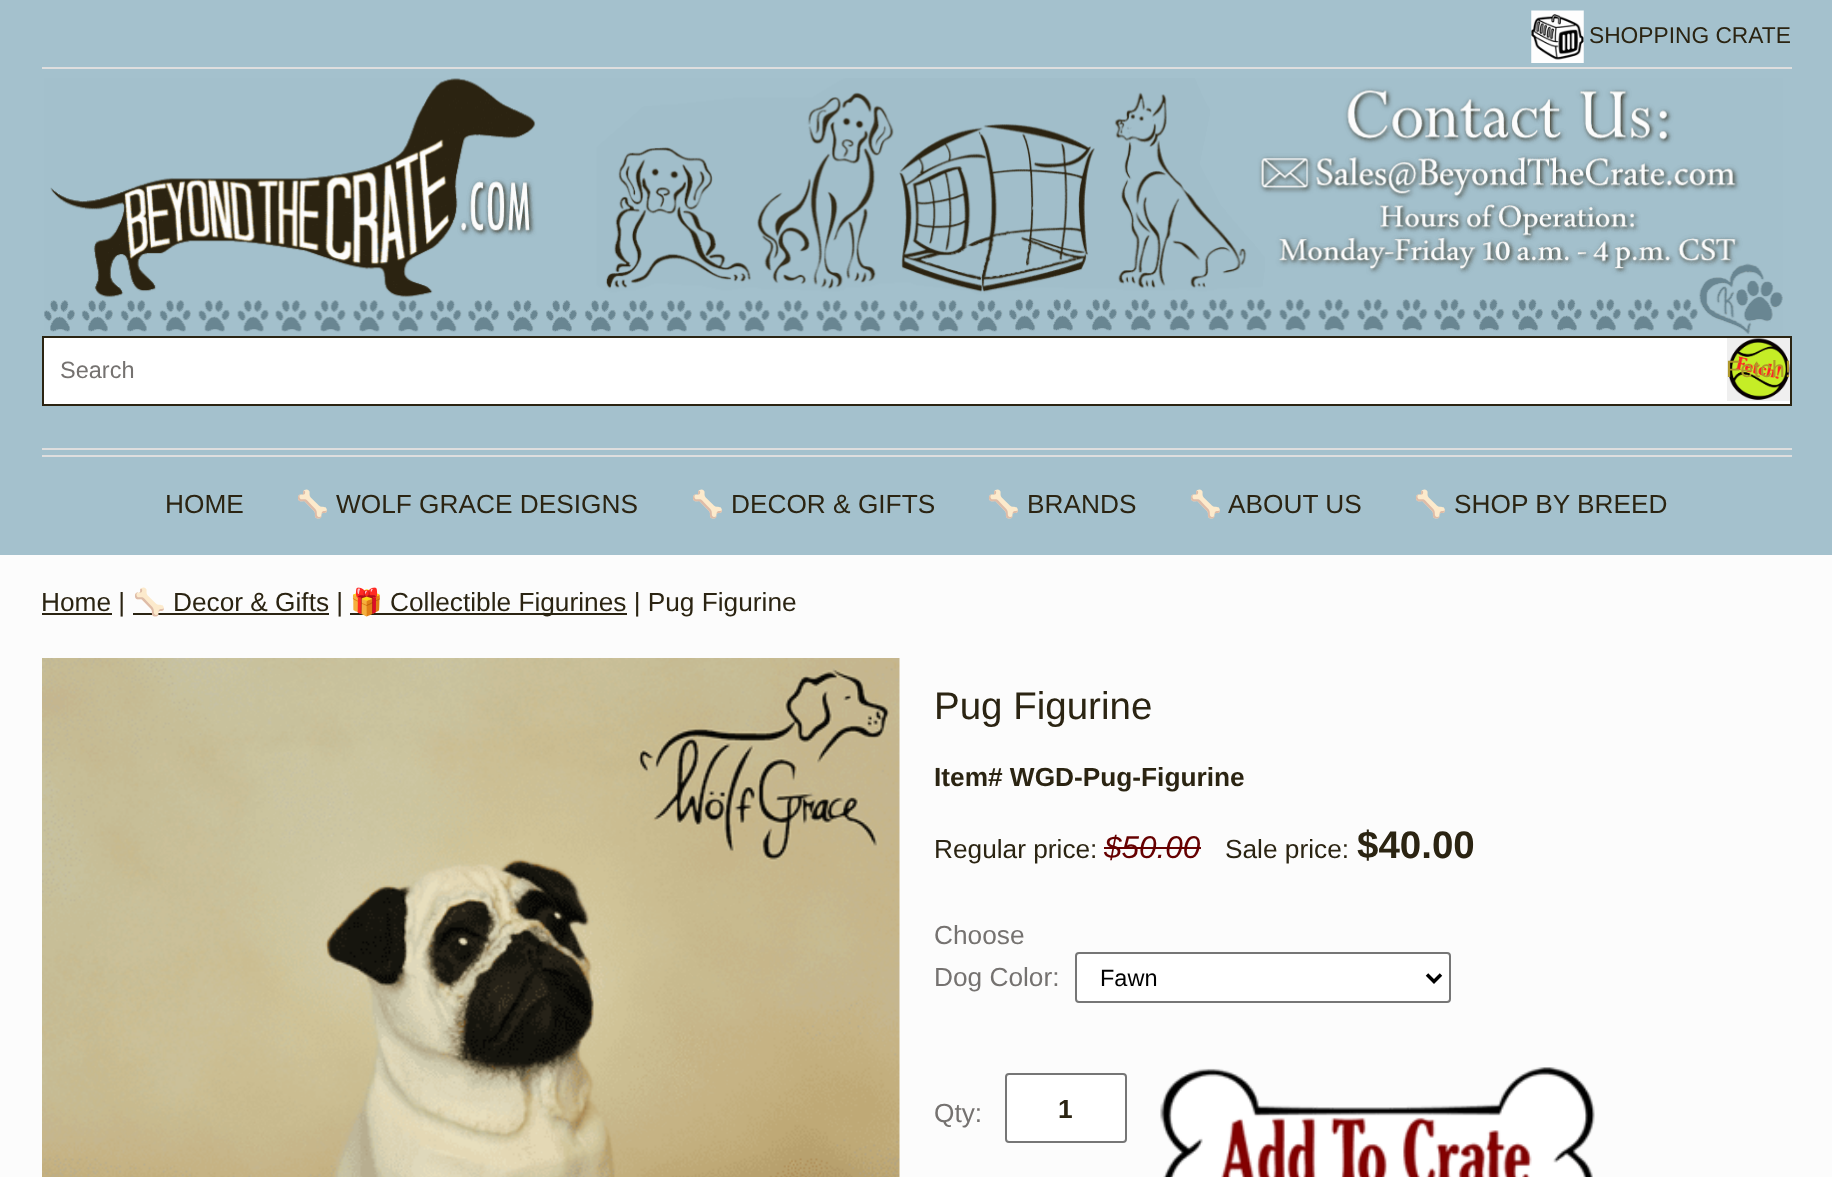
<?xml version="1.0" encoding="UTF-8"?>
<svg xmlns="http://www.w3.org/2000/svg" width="1832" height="1177">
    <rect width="100%" height="100%" fill="#A4C1CD"/>
    <image x="1531" y="10" width="53" height="53" href="img_01.png"/>
    <text x="1589" y="43" font-family="Liberation Sans" font-size="22.75" fill="#2B2412">SHOPPING CRATE</text>
    <rect x="42" y="67" width="1750" height="2" fill="#DEDEDE"/>
    <rect x="42" y="448" width="1750" height="2" fill="#DEDEDE"/>
    <image x="44" y="78" width="1739" height="256" href="img_02.png"/>
    <rect x="43" y="337" width="1748" height="68" fill="#FFFFFF" stroke="#2B2412" stroke-width="2"/>
    <text x="60" y="378" font-family="Liberation Sans" font-size="23.5" fill="#757270">Search</text>
    <rect x="1727" y="338" width="63" height="63" fill="#EFEFEF"/>
    <image x="1728" y="338" width="62" height="62" href="img_03.png"/>
    <text x="1726" y="377" font-family="Liberation Sans" font-size="23.5" fill="#AF982A">Fetch!</text>
    <rect x="42" y="455" width="1750" height="2" fill="#DEDEDE"/>
    <text x="165" y="513" font-family="Liberation Sans" font-size="26.25" fill="#2B2412">HOME</text>
    <text x="296" y="513" font-family="Noto Color Emoji" font-size="26.25" fill="#2B2412">🦴</text>
    <text x="336" y="513" font-family="Liberation Sans" font-size="26.25" fill="#2B2412">WOLF GRACE DESIGNS</text>
    <text x="691" y="513" font-family="Noto Color Emoji" font-size="26.25" fill="#2B2412">🦴</text>
    <text x="731" y="513" font-family="Liberation Sans" font-size="26.25" fill="#2B2412">DECOR &amp; GIFTS</text>
    <text x="987" y="513" font-family="Noto Color Emoji" font-size="26.25" fill="#2B2412">🦴</text>
    <text x="1027" y="513" font-family="Liberation Sans" font-size="26.25" fill="#2B2412">BRANDS</text>
    <text x="1189" y="513" font-family="Noto Color Emoji" font-size="26.25" fill="#2B2412">🦴</text>
    <text x="1228" y="513" font-family="Liberation Sans" font-size="26.25" fill="#2B2412">ABOUT US</text>
    <text x="1414" y="513" font-family="Noto Color Emoji" font-size="26.25" fill="#2B2412">🦴</text>
    <text x="1454" y="513" font-family="Liberation Sans" font-size="26.25" fill="#2B2412">SHOP BY BREED</text>
    <rect x="0" y="555" width="1832" height="622" fill="#FCFCFC"/>
    <rect x="42" y="613" width="70" height="2" fill="#2B2412"/>
    <text x="41" y="611" font-family="Liberation Sans" font-size="26.25" fill="#2B2412">Home |</text>
    <rect x="133" y="613" width="196" height="2" fill="#2B2412"/>
    <text x="133" y="611" font-family="Noto Color Emoji" font-size="26.25" fill="#2B2412">🦴</text>
    <text x="173" y="611" font-family="Liberation Sans" font-size="26.25" fill="#2B2412">Decor &amp; Gifts |</text>
    <rect x="350" y="613" width="277" height="2" fill="#2B2412"/>
    <text x="350" y="611" font-family="Noto Color Emoji" font-size="26.25" fill="#2B2412">🎁</text>
    <text x="390" y="611" font-family="Liberation Sans" font-size="26.25" fill="#2B2412">Collectible Figurines | Pug Figurine</text>
    <image x="42" y="658" width="858" height="519" href="img_04.png"/>
    <text x="934" y="719" font-family="Liberation Sans" font-size="38.5" fill="#2B2412">Pug Figurine</text>
    <text x="934" y="786" font-family="Liberation Sans" font-size="26.25" font-weight="700" fill="#2B2412">Item# WGD-Pug-Figurine</text>
    <text x="934" y="858" font-family="Liberation Sans" font-size="26.25" fill="#2B2412">Regular price:</text>
    <text x="1104" y="858" font-family="Liberation Sans" font-size="31.5" font-style="italic" fill="#660000">$50.00</text>
    <rect x="1104" y="847" width="97" height="2" fill="#660000"/>
    <text x="1225" y="858" font-family="Liberation Sans" font-size="26.25" fill="#2B2412">Sale price:</text>
    <text x="1357" y="858" font-family="Liberation Sans" font-size="38.5" font-weight="700" fill="#2B2412">$40.00</text>
    <text font-family="Liberation Sans" font-size="26.25" fill="#757270">
        <tspan x="934" y="944">Choose</tspan>
        <tspan x="934" y="986">Dog Color:</tspan>
    </text>
    <rect x="1076" y="953" width="374" height="49" rx="3" fill="#FFFFFF" stroke="#767676" stroke-width="2"/>
    <path d="M 1427 974.5 L 1434 981.5 L 1441 974.5" fill="none" stroke="#000000" stroke-width="3.5"/>
    <text x="1100" y="986" font-family="Liberation Sans" font-size="23.5" fill="#000000">Fawn</text>
    <text x="934" y="1122" font-family="Liberation Sans" font-size="26.25" fill="#757270">Qty:</text>
    <rect x="1006" y="1074" width="120" height="68" rx="3" fill="#FFFFFF" stroke="#767676" stroke-width="2"/>
    <text x="1058" y="1118" font-family="Liberation Sans" font-size="26.25" font-weight="700" fill="#2B2412">1</text>
    <image x="1160" y="1067" width="435" height="110" href="img_05.png"/>
</svg>
